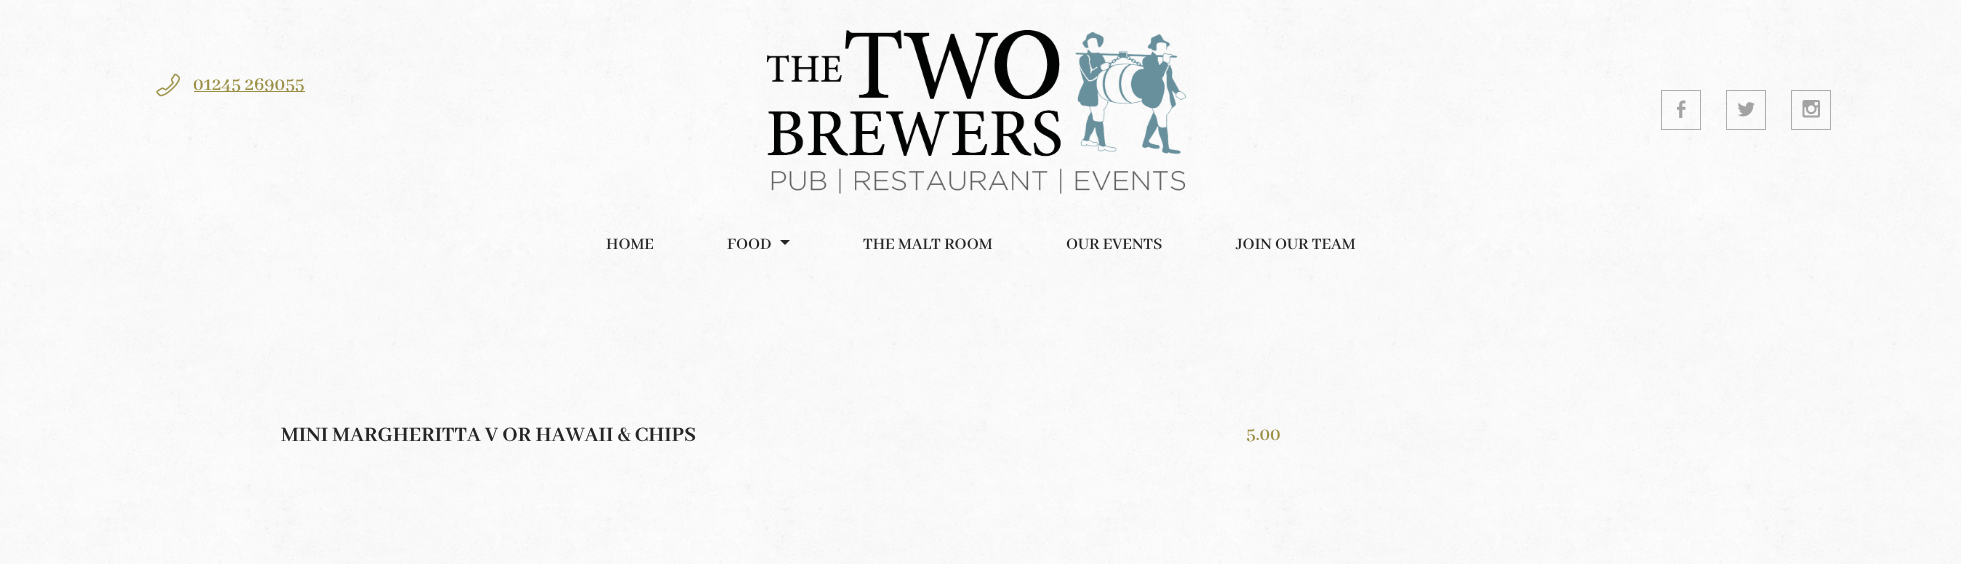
<?xml version="1.0" encoding="UTF-8"?>
<svg xmlns="http://www.w3.org/2000/svg" width="1961" height="564">
    <rect width="100%" height="100%" fill="#FFFFFF"/>
    <image x="0" y="0" width="1961" height="564" href="img_01.png"/>
    <image x="156" y="73" width="24" height="24" href="img_02.png"/>
    <rect x="194" y="91" width="111" height="1" fill="#9A8F45"/>
    <text x="193" y="90" font-family="Abhaya Libre SemiBold" font-size="20" font-weight="600" fill="#9A8F45">01245 269055</text>
    <image x="766" y="30" width="421" height="164" href="img_03.png"/>
    <rect x="1661.5" y="90.5" width="39" height="39" fill="none" stroke="#000000" stroke-opacity="0.3"/>
    <image x="1677" y="100" width="9" height="18" href="img_04.png"/>
    <rect x="1726.5" y="90.5" width="39" height="39" fill="none" stroke="#000000" stroke-opacity="0.3"/>
    <image x="1737" y="102" width="18" height="15" href="img_05.png"/>
    <rect x="1791.5" y="90.5" width="39" height="39" fill="none" stroke="#000000" stroke-opacity="0.3"/>
    <image x="1802" y="100" width="18" height="18" href="img_06.png"/>
    <text x="606" y="249" font-family="Abhaya Libre SemiBold" font-size="17.5" font-weight="600" fill="#252525">HOME</text>
    <text x="727" y="249" font-family="Abhaya Libre SemiBold" font-size="17.5" font-weight="600" fill="#252525">FOOD</text>
    <path d="M 780 240 H 790 L 785 245 Z" fill="#262626"/>
    <text x="863" y="249" font-family="Abhaya Libre SemiBold" font-size="17.5" font-weight="600" fill="#252525">THE MALT ROOM</text>
    <text x="1066" y="249" font-family="Abhaya Libre SemiBold" font-size="17.5" font-weight="600" fill="#252525">OUR EVENTS</text>
    <text x="1236" y="249" font-family="Abhaya Libre SemiBold" font-size="17.5" font-weight="600" fill="#252525">JOIN OUR TEAM</text>
    <text x="281" y="441" font-family="Abhaya Libre" font-size="22.5" font-weight="700" fill="#252525">MINI MARGHERITTA V OR HAWAII &amp; CHIPS</text>
    <text x="1246" y="440" font-family="Abhaya Libre SemiBold" font-size="20" font-weight="600" fill="#9A8F45">5.00</text>
</svg>
